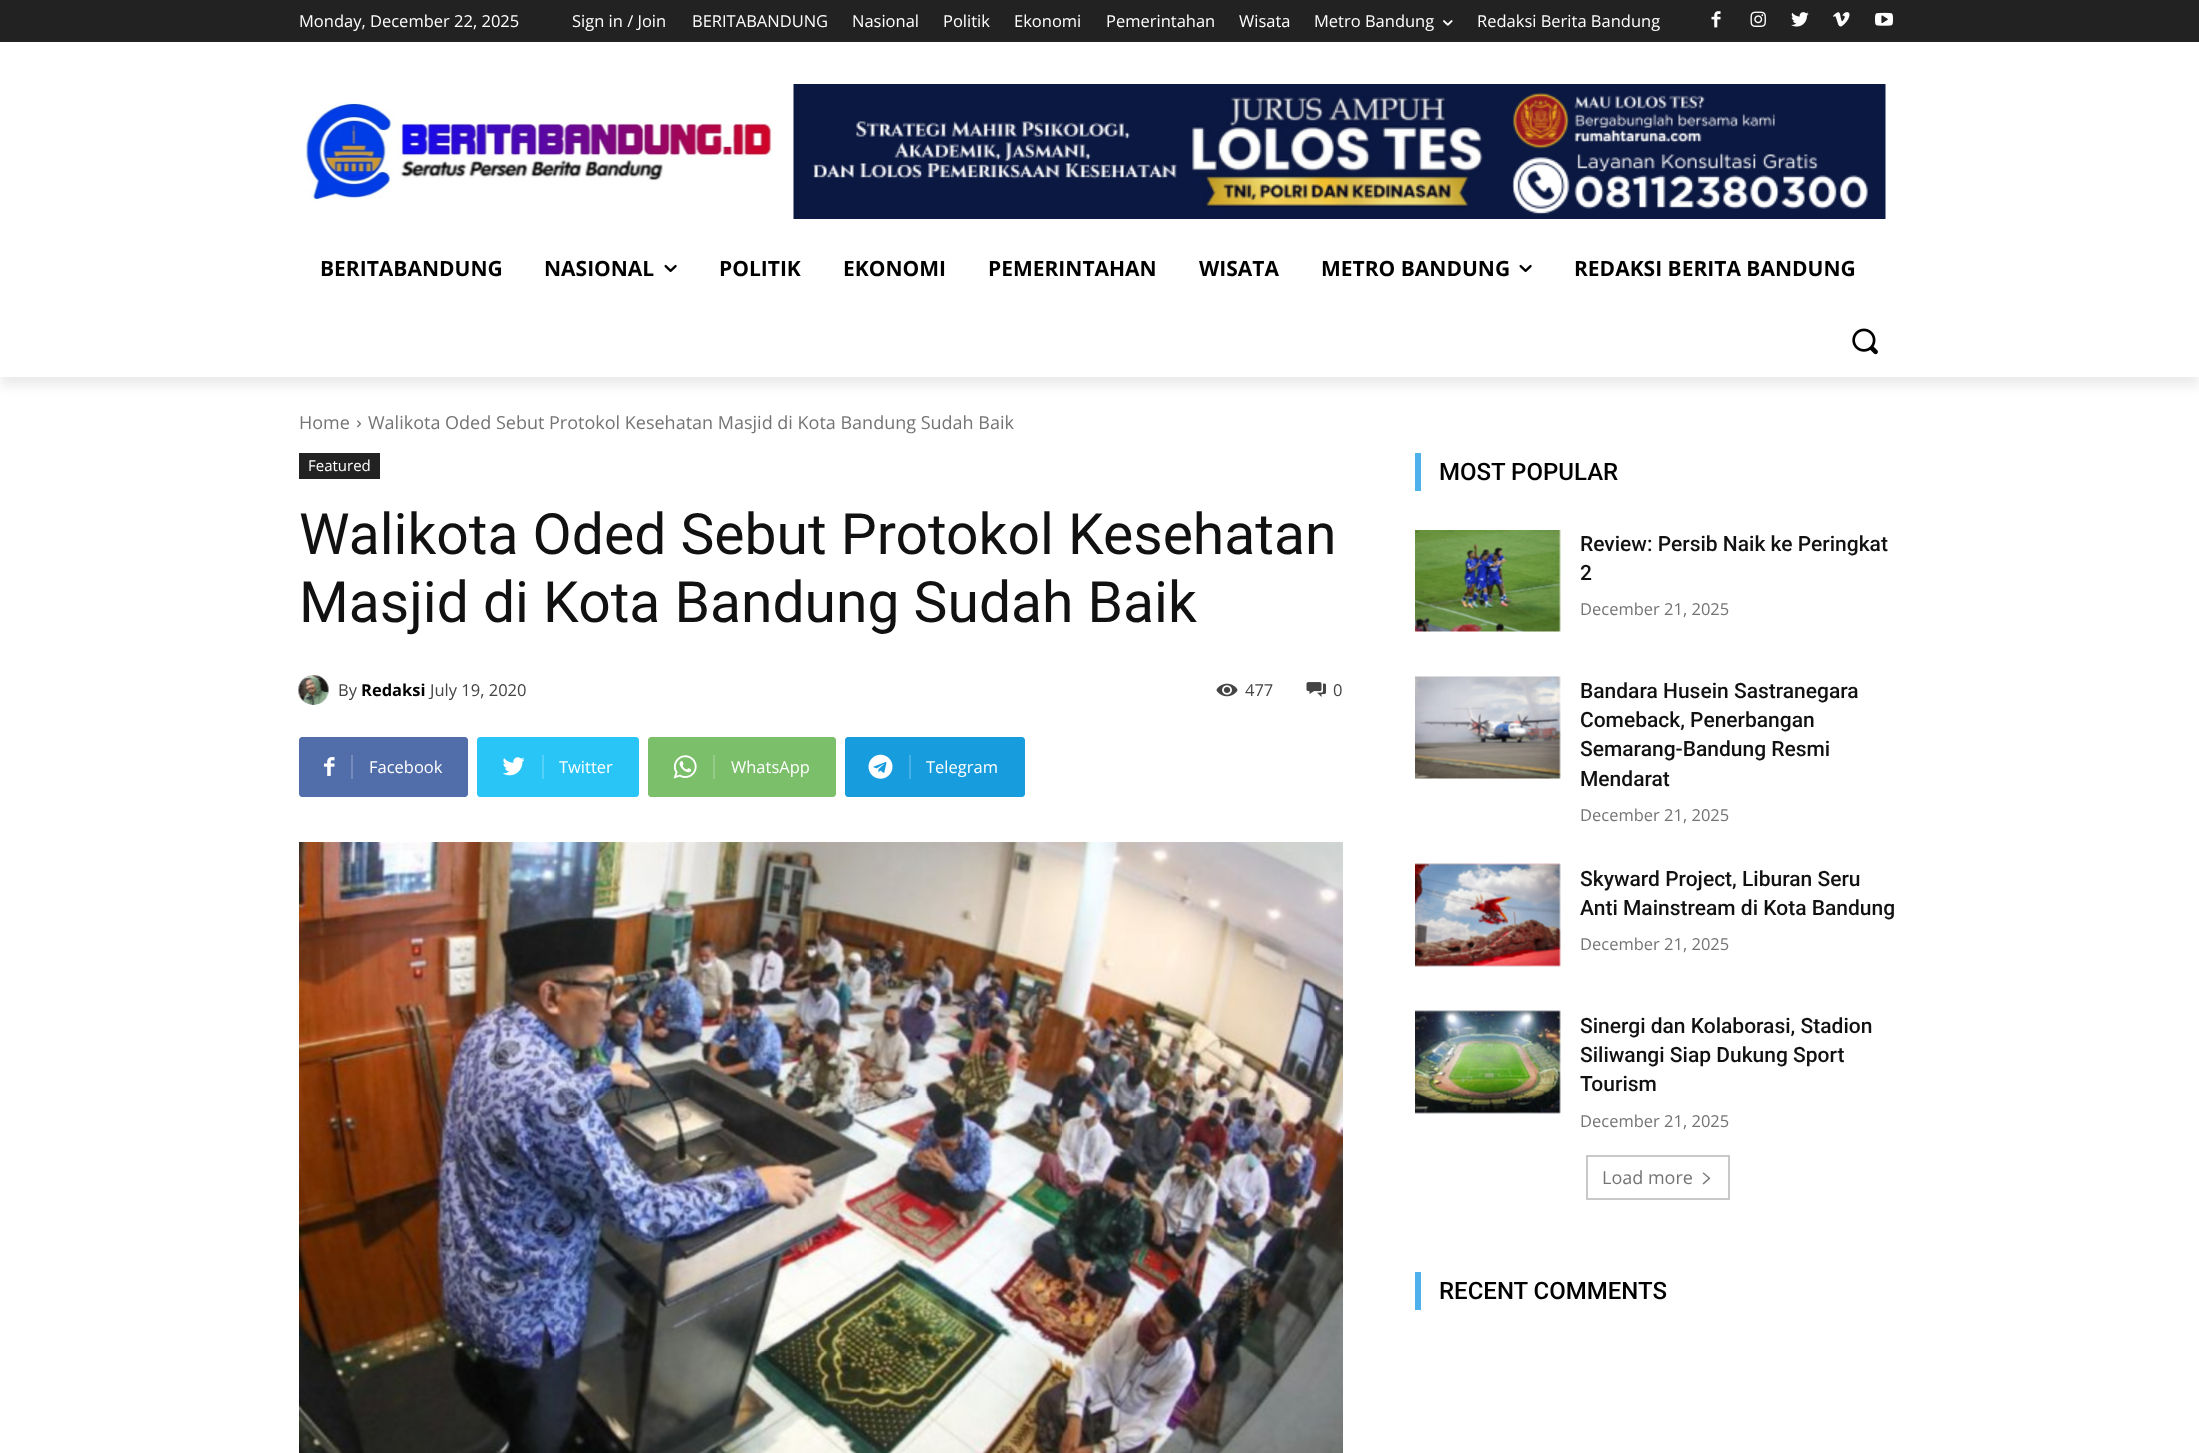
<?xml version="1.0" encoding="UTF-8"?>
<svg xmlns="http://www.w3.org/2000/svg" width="2199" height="1453">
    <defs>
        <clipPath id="clip1"><path d="M 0 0 H 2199 V 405 H 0 Z M 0 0 H 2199 V 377 H 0 Z" clip-rule="evenodd"/></clipPath>
        <filter id="blur1" x="-50%" y="-200%" width="200%" height="500%"><feGaussianBlur stdDeviation="6"/></filter>
    </defs>
    <rect width="100%" height="100%" fill="#FFFFFF"/>
    <rect x="0" y="0" width="2199" height="42" fill="#222222"/>
    <image x="1711" y="11" width="10" height="17" href="img_02.png"/>
    <image x="1750" y="11" width="16" height="16" href="img_03.png"/>
    <image x="1791" y="12" width="18" height="15" href="img_04.png"/>
    <image x="1833" y="12" width="17" height="15" href="img_05.png"/>
    <image x="1875" y="12" width="18" height="14" href="img_06.png"/>
    <image x="305" y="102" width="467" height="99" href="img_07.png"/>
    <image x="793" y="84" width="1093" height="135" href="img_08.png"/>
    <g clip-path="url(#clip1)">
        <rect x="0" y="9" width="2199" height="377" fill="#000000" fill-opacity="0.08" filter="url(#blur1)"/>
    </g>
    <text x="299" y="27" font-family="Open Sans" font-size="16.5" fill="#FFFFFF">Monday, December 22, 2025</text>
    <text x="572" y="27" font-family="Open Sans" font-size="16.5" fill="#FFFFFF">Sign in / Join</text>
    <text x="692" y="27" font-family="Open Sans" font-size="16.5" fill="#FFFFFF">BERITABANDUNG</text>
    <text x="852" y="27" font-family="Open Sans" font-size="16.5" fill="#FFFFFF">Nasional</text>
    <text x="943" y="27" font-family="Open Sans" font-size="16.5" fill="#FFFFFF">Politik</text>
    <text x="1014" y="27" font-family="Open Sans" font-size="16.5" fill="#FFFFFF">Ekonomi</text>
    <text x="1106" y="27" font-family="Open Sans" font-size="16.5" fill="#FFFFFF">Pemerintahan</text>
    <text x="1239" y="27" font-family="Open Sans" font-size="16.5" fill="#FFFFFF">Wisata</text>
    <text x="1314" y="27" font-family="Open Sans" font-size="16.5" fill="#FFFFFF">Metro Bandung</text>
    <image x="1443" y="20" width="10" height="6" href="img_01.png"/>
    <text x="1477" y="27" font-family="Open Sans" font-size="16.5" fill="#FFFFFF">Redaksi Berita Bandung</text>
    <text x="320" y="276" font-family="Open Sans" font-size="21" font-weight="700" fill="#000000">BERITABANDUNG</text>
    <text x="544" y="276" font-family="Open Sans" font-size="21" font-weight="700" fill="#000000">NASIONAL</text>
    <image x="664" y="264" width="13" height="8" href="img_09.png"/>
    <text x="719" y="276" font-family="Open Sans" font-size="21" font-weight="700" fill="#000000">POLITIK</text>
    <text x="843" y="276" font-family="Open Sans" font-size="21" font-weight="700" fill="#000000">EKONOMI</text>
    <text x="988" y="276" font-family="Open Sans" font-size="21" font-weight="700" fill="#000000">PEMERINTAHAN</text>
    <text x="1199" y="276" font-family="Open Sans" font-size="21" font-weight="700" fill="#000000">WISATA</text>
    <text x="1321" y="276" font-family="Open Sans" font-size="21" font-weight="700" fill="#000000">METRO BANDUNG</text>
    <image x="1519" y="264" width="13" height="8" href="img_09.png"/>
    <text x="1574" y="276" font-family="Open Sans" font-size="21" font-weight="700" fill="#000000">REDAKSI BERITA BANDUNG</text>
    <image x="1852" y="328" width="26" height="27" href="img_10.png"/>
    <text x="299" y="429" font-family="Open Sans" font-size="18" fill="#747474">Home</text>
    <image x="357" y="420" width="4" height="8" href="img_11.png"/>
    <text x="368" y="429" font-family="Open Sans" font-size="18" fill="#747474">Walikota Oded Sebut Protokol Kesehatan Masjid di Kota Bandung Sudah Baik</text>
    <rect x="299" y="453" width="81" height="26" fill="#222222"/>
    <text x="308" y="471" font-family="Open Sans" font-size="15" fill="#FFFFFF">Featured</text>
    <text font-family="Roboto" font-size="57" fill="#111111">
        <tspan x="299" y="554">Walikota Oded Sebut Protokol Kesehatan</tspan>
        <tspan x="299" y="622">Masjid di Kota Bandung Sudah Baik</tspan>
    </text>
    <image x="298" y="675" width="31" height="30" href="img_12.png"/>
    <text x="338" y="696" font-family="Open Sans" font-size="16.5" fill="#444444">By</text>
    <text x="361" y="696" font-family="Open Sans" font-size="16.5" font-weight="700" fill="#000000">Redaksi</text>
    <text x="430" y="696" font-family="Open Sans" font-size="16.5" fill="#444444">July 19, 2020</text>
    <image x="1216" y="683" width="22" height="14" href="img_13.png"/>
    <text x="1245" y="696" font-family="Open Sans" font-size="16.5" fill="#444444">477</text>
    <image x="1306" y="682" width="20" height="15" href="img_14.png"/>
    <text x="1333" y="696" font-family="Open Sans" font-size="16.5" fill="#444444">0</text>
    <path d="M 351 737 H 465 C 466.5 737 468 738.5 468 740 V 794 C 468 795.5 466.5 797 465 797 H 351 Z" fill="#516EAB"/>
    <path d="M 302 737 H 360 V 797 H 302 C 300.5 797 299 795.5 299 794 V 740 C 299 738.5 300.5 737 302 737 Z" fill="#516EAB"/>
    <image x="324" y="757" width="11" height="19" href="img_15.png"/>
    <rect x="351" y="755" width="2" height="24" fill="#748BBC"/>
    <text x="369" y="773" font-family="Open Sans" font-size="16.5" fill="#FFFFFF">Facebook</text>
    <path d="M 542 737 H 636 C 637.5 737 639 738.5 639 740 V 794 C 639 795.5 637.5 797 636 797 H 542 Z" fill="#29C5F6"/>
    <path d="M 480 737 H 551 V 797 H 480 C 478.5 797 477 795.5 477 794 V 740 C 477 738.5 478.5 737 480 737 Z" fill="#29C5F6"/>
    <image x="502" y="757" width="23" height="19" href="img_16.png"/>
    <rect x="542" y="755" width="2" height="24" fill="#54D1F8"/>
    <text x="559" y="773" font-family="Open Sans" font-size="16.5" fill="#FFFFFF">Twitter</text>
    <path d="M 713 737 H 833 C 834.5 737 836 738.5 836 740 V 794 C 836 795.5 834.5 797 833 797 H 713 Z" fill="#7BBF6A"/>
    <path d="M 651 737 H 722 V 797 H 651 C 649.5 797 648 795.5 648 794 V 740 C 648 738.5 649.5 737 651 737 Z" fill="#7BBF6A"/>
    <image x="673" y="755" width="24" height="24" href="img_17.png"/>
    <rect x="713" y="755" width="2" height="24" fill="#95CC88"/>
    <text x="731" y="773" font-family="Open Sans" font-size="16.5" fill="#FFFFFF">WhatsApp</text>
    <path d="M 909 737 H 1022 C 1023.5 737 1025 738.5 1025 740 V 794 C 1025 795.5 1023.5 797 1022 797 H 909 Z" fill="#179CDE"/>
    <path d="M 848 737 H 918 V 797 H 848 C 846.5 797 845 795.5 845 794 V 740 C 845 738.5 846.5 737 848 737 Z" fill="#179CDE"/>
    <image x="868" y="754" width="25" height="25" href="img_18.png"/>
    <rect x="909" y="755" width="2" height="24" fill="#45B0E5"/>
    <text x="926" y="773" font-family="Open Sans" font-size="16.5" fill="#FFFFFF">Telegram</text>
    <image x="299" y="842" width="1044" height="611" href="img_19.png"/>
    <rect x="1415" y="453" width="6" height="38" fill="#4DB2EC"/>
    <text x="1439" y="480" font-family="Roboto" font-size="24" font-weight="500" fill="#000000">MOST POPULAR</text>
    <image x="1415" y="530" width="146" height="102" href="img_20.png"/>
    <text font-family="Roboto" font-size="21" font-weight="500" fill="#111111">
        <tspan x="1580" y="551">Review: Persib Naik ke Peringkat</tspan>
        <tspan x="1580" y="580">2</tspan>
    </text>
    <text x="1580" y="615" font-family="Open Sans" font-size="16.5" fill="#747474">December 21, 2025</text>
    <image x="1415" y="676" width="146" height="103" href="img_21.png"/>
    <text font-family="Roboto" font-size="21" font-weight="500" fill="#111111">
        <tspan x="1580" y="698">Bandara Husein Sastranegara</tspan>
        <tspan x="1580" y="727">Comeback, Penerbangan</tspan>
        <tspan x="1580" y="756">Semarang-Bandung Resmi</tspan>
        <tspan x="1580" y="786">Mendarat</tspan>
    </text>
    <text x="1580" y="821" font-family="Open Sans" font-size="16.5" fill="#747474">December 21, 2025</text>
    <image x="1415" y="863" width="146" height="104" href="img_22.png"/>
    <text font-family="Roboto" font-size="21" font-weight="500" fill="#111111">
        <tspan x="1580" y="886">Skyward Project, Liburan Seru</tspan>
        <tspan x="1580" y="915">Anti Mainstream di Kota Bandung</tspan>
    </text>
    <text x="1580" y="950" font-family="Open Sans" font-size="16.5" fill="#747474">December 21, 2025</text>
    <image x="1415" y="1010" width="146" height="104" href="img_23.png"/>
    <text font-family="Roboto" font-size="21" font-weight="500" fill="#111111">
        <tspan x="1580" y="1033">Sinergi dan Kolaborasi, Stadion</tspan>
        <tspan x="1580" y="1062">Siliwangi Siap Dukung Sport</tspan>
        <tspan x="1580" y="1091">Tourism</tspan>
    </text>
    <text x="1580" y="1127" font-family="Open Sans" font-size="16.5" fill="#747474">December 21, 2025</text>
    <rect x="1587" y="1156" width="142" height="43" fill="none" stroke="#C9C9C9" stroke-width="2"/>
    <text x="1602" y="1184" font-family="Open Sans" font-size="18" fill="#747474">Load more</text>
    <image x="1702" y="1172" width="9" height="13" href="img_24.png"/>
    <rect x="1415" y="1272" width="6" height="38" fill="#4DB2EC"/>
    <text x="1439" y="1299" font-family="Roboto" font-size="24" font-weight="500" fill="#000000">RECENT COMMENTS</text>
</svg>
